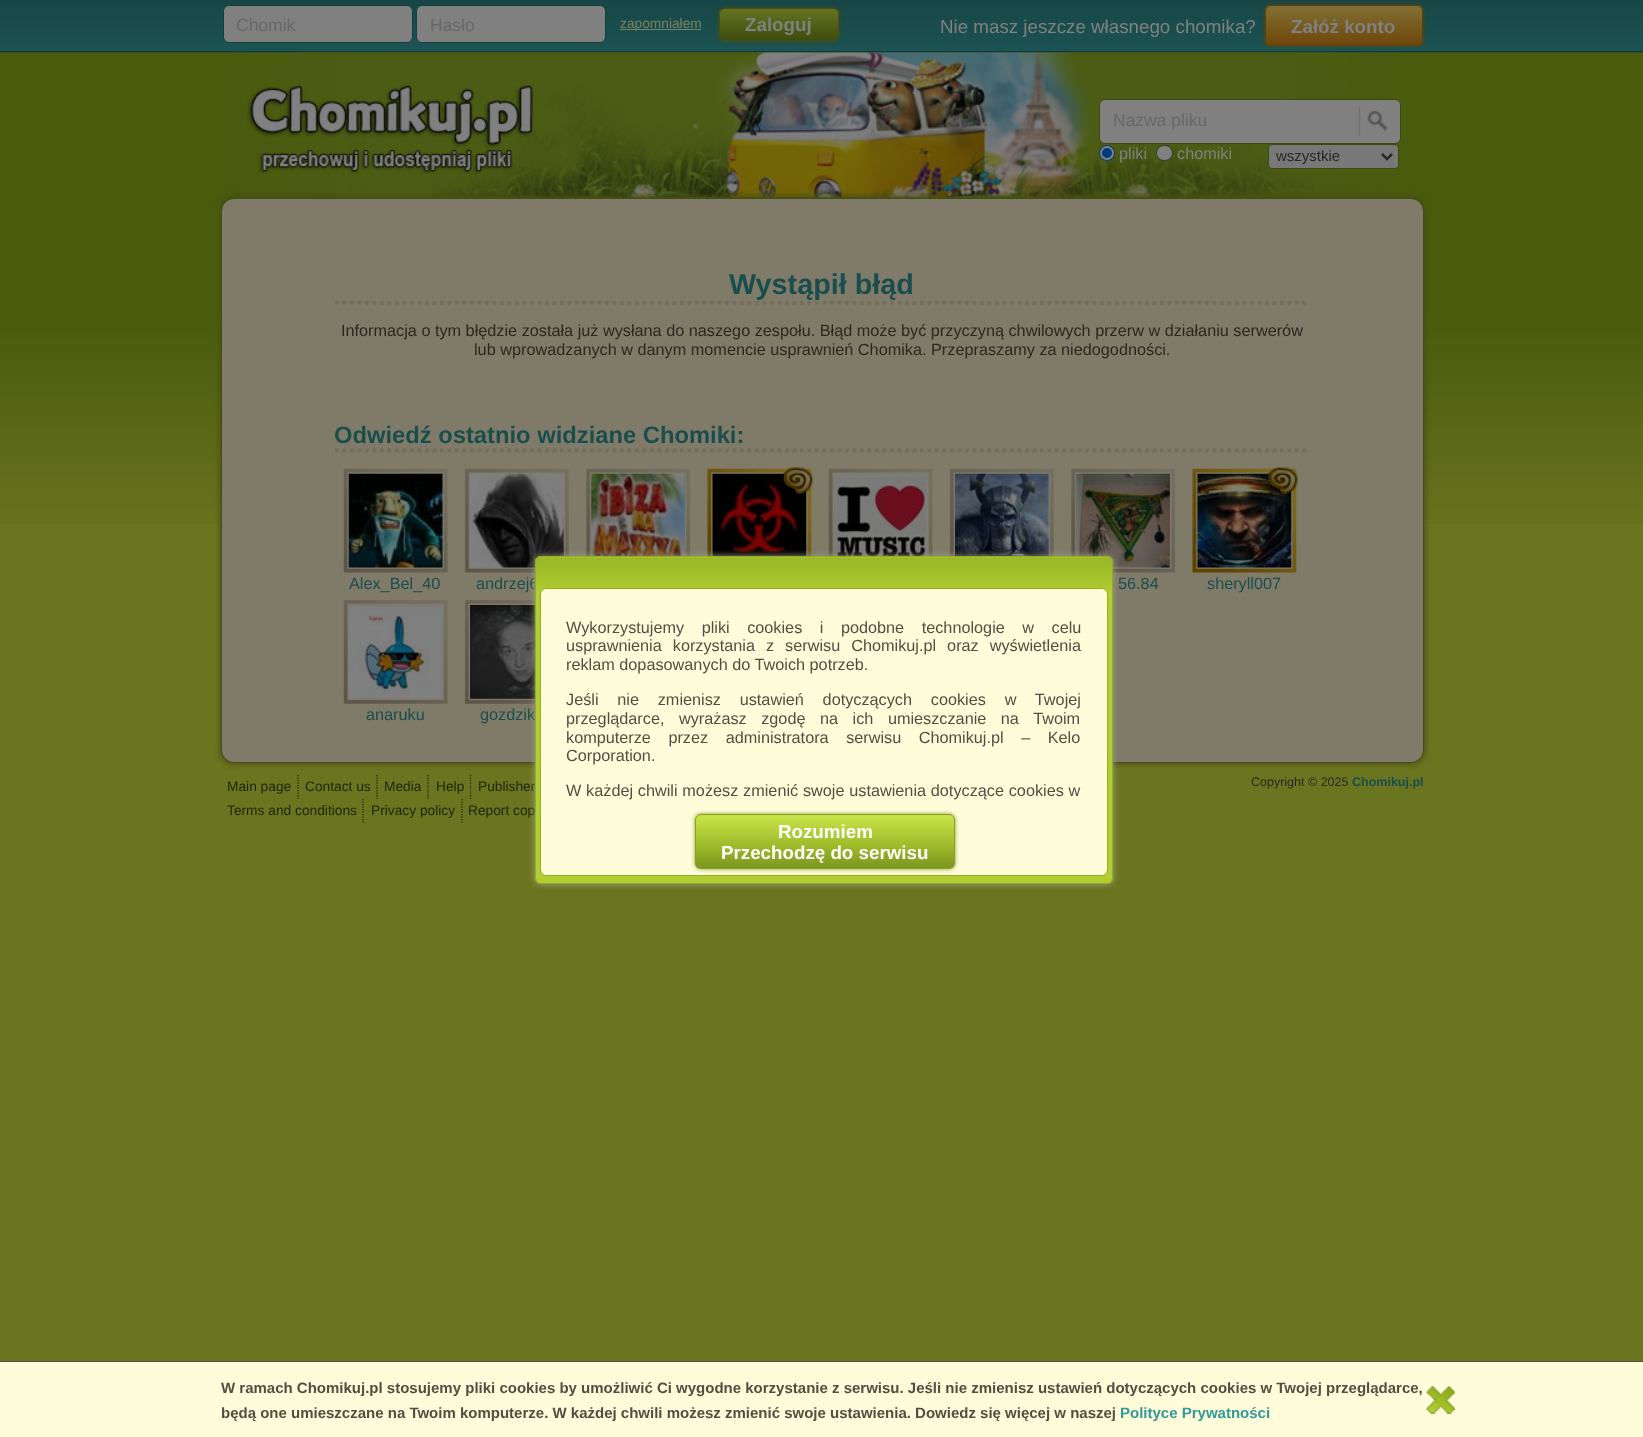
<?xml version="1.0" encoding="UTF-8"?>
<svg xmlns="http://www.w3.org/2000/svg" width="1643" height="1437">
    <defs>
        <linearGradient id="g1" gradientUnits="userSpaceOnUse" x1="822" y1="0" x2="822" y2="51"><stop offset="0" stop-color="#184646"/><stop offset="1" stop-color="#1C5353"/></linearGradient>
        <linearGradient id="g2" gradientUnits="userSpaceOnUse" x1="822" y1="51" x2="822" y2="103"><stop offset="0" stop-color="#184646"/><stop offset="1" stop-color="#1C5353"/></linearGradient>
        <filter id="blur1" x="-50%" y="-200%" width="200%" height="500%"><feGaussianBlur stdDeviation="2"/></filter>
        <clipPath id="clip1"><rect x="719" y="8" width="120" height="33" rx="6"/></clipPath>
        <linearGradient id="g3" gradientUnits="userSpaceOnUse" x1="779" y1="9" x2="779" y2="40"><stop offset="0" stop-color="#637123"/><stop offset="0.06" stop-color="#637123"/><stop offset="0.61" stop-color="#4E5C15"/><stop offset="0.83" stop-color="#455312"/><stop offset="1" stop-color="#3F4B10"/></linearGradient>
        <clipPath id="clip2"><rect x="1265" y="5" width="158" height="41" rx="6"/></clipPath>
        <linearGradient id="g4" gradientUnits="userSpaceOnUse" x1="1344" y1="6.2" x2="1344" y2="45"><stop offset="0" stop-color="#807034"/><stop offset="1" stop-color="#6F460A"/></linearGradient>
        <filter id="blur2" x="-50%" y="-200%" width="200%" height="500%"><feGaussianBlur stdDeviation="3"/></filter>
        <clipPath id="clip3"><rect x="695" y="814" width="260" height="55" rx="6"/></clipPath>
        <linearGradient id="g5" gradientUnits="userSpaceOnUse" x1="825" y1="815" x2="825" y2="868"><stop offset="0" stop-color="#C6E146"/><stop offset="0.06" stop-color="#C6E146"/><stop offset="0.61" stop-color="#9CB829"/><stop offset="0.83" stop-color="#8AA524"/><stop offset="1" stop-color="#7D9520"/></linearGradient>
    </defs>
    <rect width="100%" height="100%" fill="#6A751F"/>
    <rect x="0" y="0" width="1643" height="51" fill="url(#g1)"/>
    <rect x="0" y="52" width="1643" height="1" fill="url(#g2)"/>
    <rect x="0" y="51" width="1643" height="1" fill="#143B3B"/>
    <rect x="223.5" y="5.5" width="189" height="37" rx="5.5" fill="#808080" stroke="#153E3E"/>
    <text x="236" y="31" font-family="Liberation Sans" font-size="17.5" fill="#686868">Chomik</text>
    <rect x="416.5" y="5.5" width="189" height="37" rx="5.5" fill="#808080" stroke="#153E3E"/>
    <text x="430" y="31" font-family="Liberation Sans" font-size="17.5" fill="#686868">Hasło</text>
    <rect x="620" y="29" width="81" height="1" fill="#78805F"/>
    <text x="620" y="28" font-family="Liberation Sans" font-size="13.75" fill="#78805F">zapomniałem</text>
    <rect x="719" y="8" width="120" height="33" rx="6" fill="#454D13" filter="url(#blur1)"/>
    <g clip-path="url(#clip1)">
        <rect x="719" y="9" width="120" height="31" fill="url(#g3)"/>
    </g>
    <rect x="719.5" y="8.5" width="119" height="32" rx="5.5" fill="none" stroke="#455112"/>
    <text x="745" y="31" font-family="Liberation Sans" font-size="18.75" font-weight="700" fill="#808080">Zaloguj</text>
    <text x="940" y="33" font-family="Liberation Sans" font-size="18.75" fill="#808080">Nie masz jeszcze własnego chomika?</text>
    <image x="0" y="52" width="1643" height="472" href="img_01.png"/>
    <rect x="1265" y="5" width="158" height="41" rx="6" fill="#454D13" filter="url(#blur1)"/>
    <g clip-path="url(#clip2)">
        <rect x="1265" y="6" width="158" height="39" fill="url(#g4)"/>
    </g>
    <rect x="1265.5" y="5.5" width="157" height="40" rx="5.5" fill="none" stroke="#653C0B"/>
    <text x="1291" y="33" font-family="Liberation Sans" font-size="18.75" font-weight="700" fill="#808080">Załóż konto</text>
    <image x="231" y="52" width="1163" height="146" href="img_02.png"/>
    <image x="247" y="84" width="287" height="90" href="img_03.png"/>
    <rect x="1099.5" y="99.5" width="301" height="44" rx="5.5" fill="#808080" stroke="#3E4910"/>
    <text x="1113" y="126" font-family="Liberation Sans" font-size="17.5" fill="#686868">Nazwa pliku</text>
    <image x="1358" y="106" width="30" height="31" href="img_04.png"/>
    <rect x="1268.5" y="144.5" width="130" height="24" rx="3.5" fill="#787878" stroke="#3E4910"/>
    <path d="M 1382 154 L 1387 159 L 1392 154" fill="none" stroke="#292821" stroke-width="2.5"/>
    <text x="1276" y="161" font-family="Liberation Sans" font-size="15" fill="#292821">wszystkie</text>
    <circle cx="1107" cy="153" r="7.5" fill="#808080" stroke="#003B80"/>
    <circle cx="1107" cy="153" r="5" fill="#003B80"/>
    <text x="1119" y="159" font-family="Liberation Sans" font-size="16.25" fill="#808080">pliki</text>
    <rect x="1156.5" y="145.5" width="16" height="15" rx="7.5" fill="#808080" stroke="#3B3B3B"/>
    <text x="1177" y="159" font-family="Liberation Sans" font-size="16.25" fill="#808080">chomiki</text>
    <rect x="220" y="196" width="1205" height="568" rx="14" fill="#454D13" filter="url(#blur2)"/>
    <rect x="221.5" y="198.5" width="1202" height="564" rx="12.5" fill="#807B69" stroke="#444D13"/>
    <path d="M 335 303 H 1310" fill="none" stroke="#736F5E" stroke-width="3.8" stroke-dasharray="3.75 3.75"/>
    <text x="729" y="294" font-family="Liberation Sans" font-size="28.75" font-weight="700" fill="#1A4D4D">Wystąpił błąd</text>
    <text x="341" y="336" font-family="Liberation Sans" font-size="16.25" fill="#292821">Informacja o tym błędzie została już wysłana do naszego zespołu. Błąd może być przyczyną chwilowych przerw w działaniu serwerów</text>
    <text x="474" y="355" font-family="Liberation Sans" font-size="16.25" fill="#292821">lub wprowadzanych w danym momencie usprawnień Chomika. Przepraszamy za niedogodności.</text>
    <path d="M 335 450.5 H 1310" fill="none" stroke="#736F5E" stroke-width="3.8" stroke-dasharray="3.75 3.75"/>
    <text x="334" y="443" font-family="Liberation Sans" font-size="23.75" font-weight="700" fill="#1A4D4D">Odwiedź ostatnio widziane Chomiki:</text>
    <image x="591" y="473" width="94" height="83" href="img_06.png"/>
    <image x="586" y="468" width="105" height="88" href="img_05.png"/>
    <image x="712" y="473" width="95" height="83" href="img_08.png"/>
    <image x="707" y="467" width="106" height="89" href="img_07.png"/>
    <image x="833" y="473" width="95" height="83" href="img_10.png"/>
    <image x="828" y="468" width="105" height="88" href="img_09.png"/>
    <image x="955" y="473" width="94" height="83" href="img_12.png"/>
    <image x="949" y="468" width="105" height="88" href="img_11.png"/>
    <image x="348" y="473" width="95" height="95" href="img_14.png"/>
    <image x="343" y="468" width="105" height="105" href="img_13.png"/>
    <text x="349" y="589" font-family="Liberation Sans" font-size="16.25" fill="#1A4D4D">Alex_Bel_40</text>
    <image x="470" y="473" width="94" height="95" href="img_16.png"/>
    <image x="464" y="468" width="105" height="105" href="img_15.png"/>
    <text x="476" y="589" font-family="Liberation Sans" font-size="16.25" fill="#1A4D4D">andrzej6</text>
    <image x="1076" y="473" width="94" height="95" href="img_18.png"/>
    <image x="1071" y="468" width="105" height="105" href="img_17.png"/>
    <text x="1118" y="589" font-family="Liberation Sans" font-size="16.25" fill="#1A4D4D">56.84</text>
    <image x="1197" y="473" width="95" height="95" href="img_20.png"/>
    <image x="1192" y="467" width="106" height="106" href="img_19.png"/>
    <text x="1207" y="589" font-family="Liberation Sans" font-size="16.25" fill="#1A4D4D">sheryll007</text>
    <image x="348" y="605" width="95" height="94" href="img_22.png"/>
    <image x="343" y="600" width="105" height="104" href="img_21.png"/>
    <text x="366" y="720" font-family="Liberation Sans" font-size="16.25" fill="#1A4D4D">anaruku</text>
    <image x="470" y="605" width="65" height="94" href="img_24.png"/>
    <image x="464" y="600" width="71" height="104" href="img_23.png"/>
    <text x="480" y="720" font-family="Liberation Sans" font-size="16.25" fill="#1A4D4D">gozdzik</text>
    <path d="M 298 775 V 799" fill="none" stroke="#1F2507" stroke-width="1.2" stroke-dasharray="1.25 1.25"/>
    <text x="227" y="791" font-family="Liberation Sans" font-size="13.75" fill="#1F2507">Main page</text>
    <path d="M 377 775 V 799" fill="none" stroke="#1F2507" stroke-width="1.2" stroke-dasharray="1.25 1.25"/>
    <text x="305" y="791" font-family="Liberation Sans" font-size="13.75" fill="#1F2507">Contact us</text>
    <path d="M 428 775 V 799" fill="none" stroke="#1F2507" stroke-width="1.2" stroke-dasharray="1.25 1.25"/>
    <text x="384" y="791" font-family="Liberation Sans" font-size="13.75" fill="#1F2507">Media</text>
    <path d="M 470.5 775 V 799" fill="none" stroke="#1F2507" stroke-width="1.2" stroke-dasharray="1.25 1.25"/>
    <text x="436" y="791" font-family="Liberation Sans" font-size="13.75" fill="#1F2507">Help</text>
    <text x="478" y="791" font-family="Liberation Sans" font-size="13.75" fill="#1F2507">Publisher</text>
    <path d="M 363 799 V 822.5" fill="none" stroke="#1F2507" stroke-width="1.2" stroke-dasharray="1.25 1.25"/>
    <text x="227" y="815" font-family="Liberation Sans" font-size="13.75" fill="#1F2507">Terms and conditions</text>
    <path d="M 462 799 V 822.5" fill="none" stroke="#1F2507" stroke-width="1.2" stroke-dasharray="1.25 1.25"/>
    <text x="371" y="815" font-family="Liberation Sans" font-size="13.75" fill="#1F2507">Privacy policy</text>
    <text x="468" y="815" font-family="Liberation Sans" font-size="13.75" fill="#1F2507">Report cop</text>
    <text x="1251" y="786" font-family="Liberation Sans" font-size="12.5" fill="#292821">Copyright © 2025</text>
    <text x="1352" y="786" font-family="Liberation Sans" font-size="12.5" font-weight="700" fill="#1A4D4D">Chomikuj.pl</text>
    <rect x="535" y="556" width="578" height="328" rx="6" fill="#A39D85" filter="url(#blur2)"/>
    <rect x="535" y="556" width="578" height="328" rx="6" fill="#B2CD31"/>
    <image x="534" y="557" width="579" height="58" href="img_25.png"/>
    <rect x="535.5" y="556.5" width="577" height="327" rx="5.5" fill="none" stroke="#91AC26"/>
    <rect x="540.5" y="588.5" width="567" height="287" rx="5.5" fill="#FFFCDA" stroke="#91AC26"/>
    <text font-family="Liberation Sans" font-size="16.25" fill="#524F42">
        <tspan x="566" y="633" word-spacing="13">Wykorzystujemy pliki cookies i podobne technologie w celu</tspan>
        <tspan x="566" y="651" word-spacing="6.5">usprawnienia korzystania z serwisu Chomikuj.pl oraz wyświetlenia</tspan>
        <tspan x="566" y="670">reklam dopasowanych do Twoich potrzeb.</tspan>
    </text>
    <text font-family="Liberation Sans" font-size="16.25" fill="#524F42">
        <tspan x="566" y="705" word-spacing="14.25">Jeśli nie zmienisz ustawień dotyczących cookies w Twojej</tspan>
        <tspan x="566" y="724" word-spacing="10">przeglądarce, wyrażasz zgodę na ich umieszczanie na Twoim</tspan>
        <tspan x="566" y="743" word-spacing="13">komputerze przez administratora serwisu Chomikuj.pl – Kelo</tspan>
        <tspan x="566" y="761">Corporation.</tspan>
    </text>
    <text x="566" y="796" word-spacing="0.25" font-family="Liberation Sans" font-size="16.25" fill="#524F42">W każdej chwili możesz zmienić swoje ustawienia dotyczące cookies w</text>
    <rect x="695" y="814" width="260" height="55" rx="6" fill="#899926" filter="url(#blur1)"/>
    <g clip-path="url(#clip3)">
        <rect x="695" y="815" width="260" height="53" fill="url(#g5)"/>
    </g>
    <rect x="695.5" y="814.5" width="259" height="54" rx="5.5" fill="none" stroke="#89A224"/>
    <text x="778" y="838" font-family="Liberation Sans" font-size="18.75" font-weight="700" fill="#FFFFFF">Rozumiem</text>
    <text x="721" y="859" font-family="Liberation Sans" font-size="18.75" font-weight="700" fill="#FFFFFF">Przechodzę do serwisu</text>
    <rect x="0" y="1362" width="1643" height="75" fill="#FFFCDA"/>
    <rect x="0" y="1361" width="1643" height="1" fill="#524F42"/>
    <text x="221" y="1393" font-family="Liberation Sans" font-size="15" font-weight="700" fill="#524F42">W ramach Chomikuj.pl stosujemy pliki cookies by umożliwić Ci wygodne korzystanie z serwisu. Jeśli nie zmienisz ustawień dotyczących cookies w Twojej przeglądarce,</text>
    <image x="1426" y="1386" width="29" height="28" href="img_26.png"/>
    <text x="221" y="1418" font-family="Liberation Sans" font-size="15" font-weight="700" fill="#524F42">będą one umieszczane na Twoim komputerze. W każdej chwili możesz zmienić swoje ustawienia. Dowiedz się więcej w naszej</text>
    <text x="1120" y="1418" font-family="Liberation Sans" font-size="15" font-weight="700" fill="#339999">Polityce Prywatności</text>
</svg>
